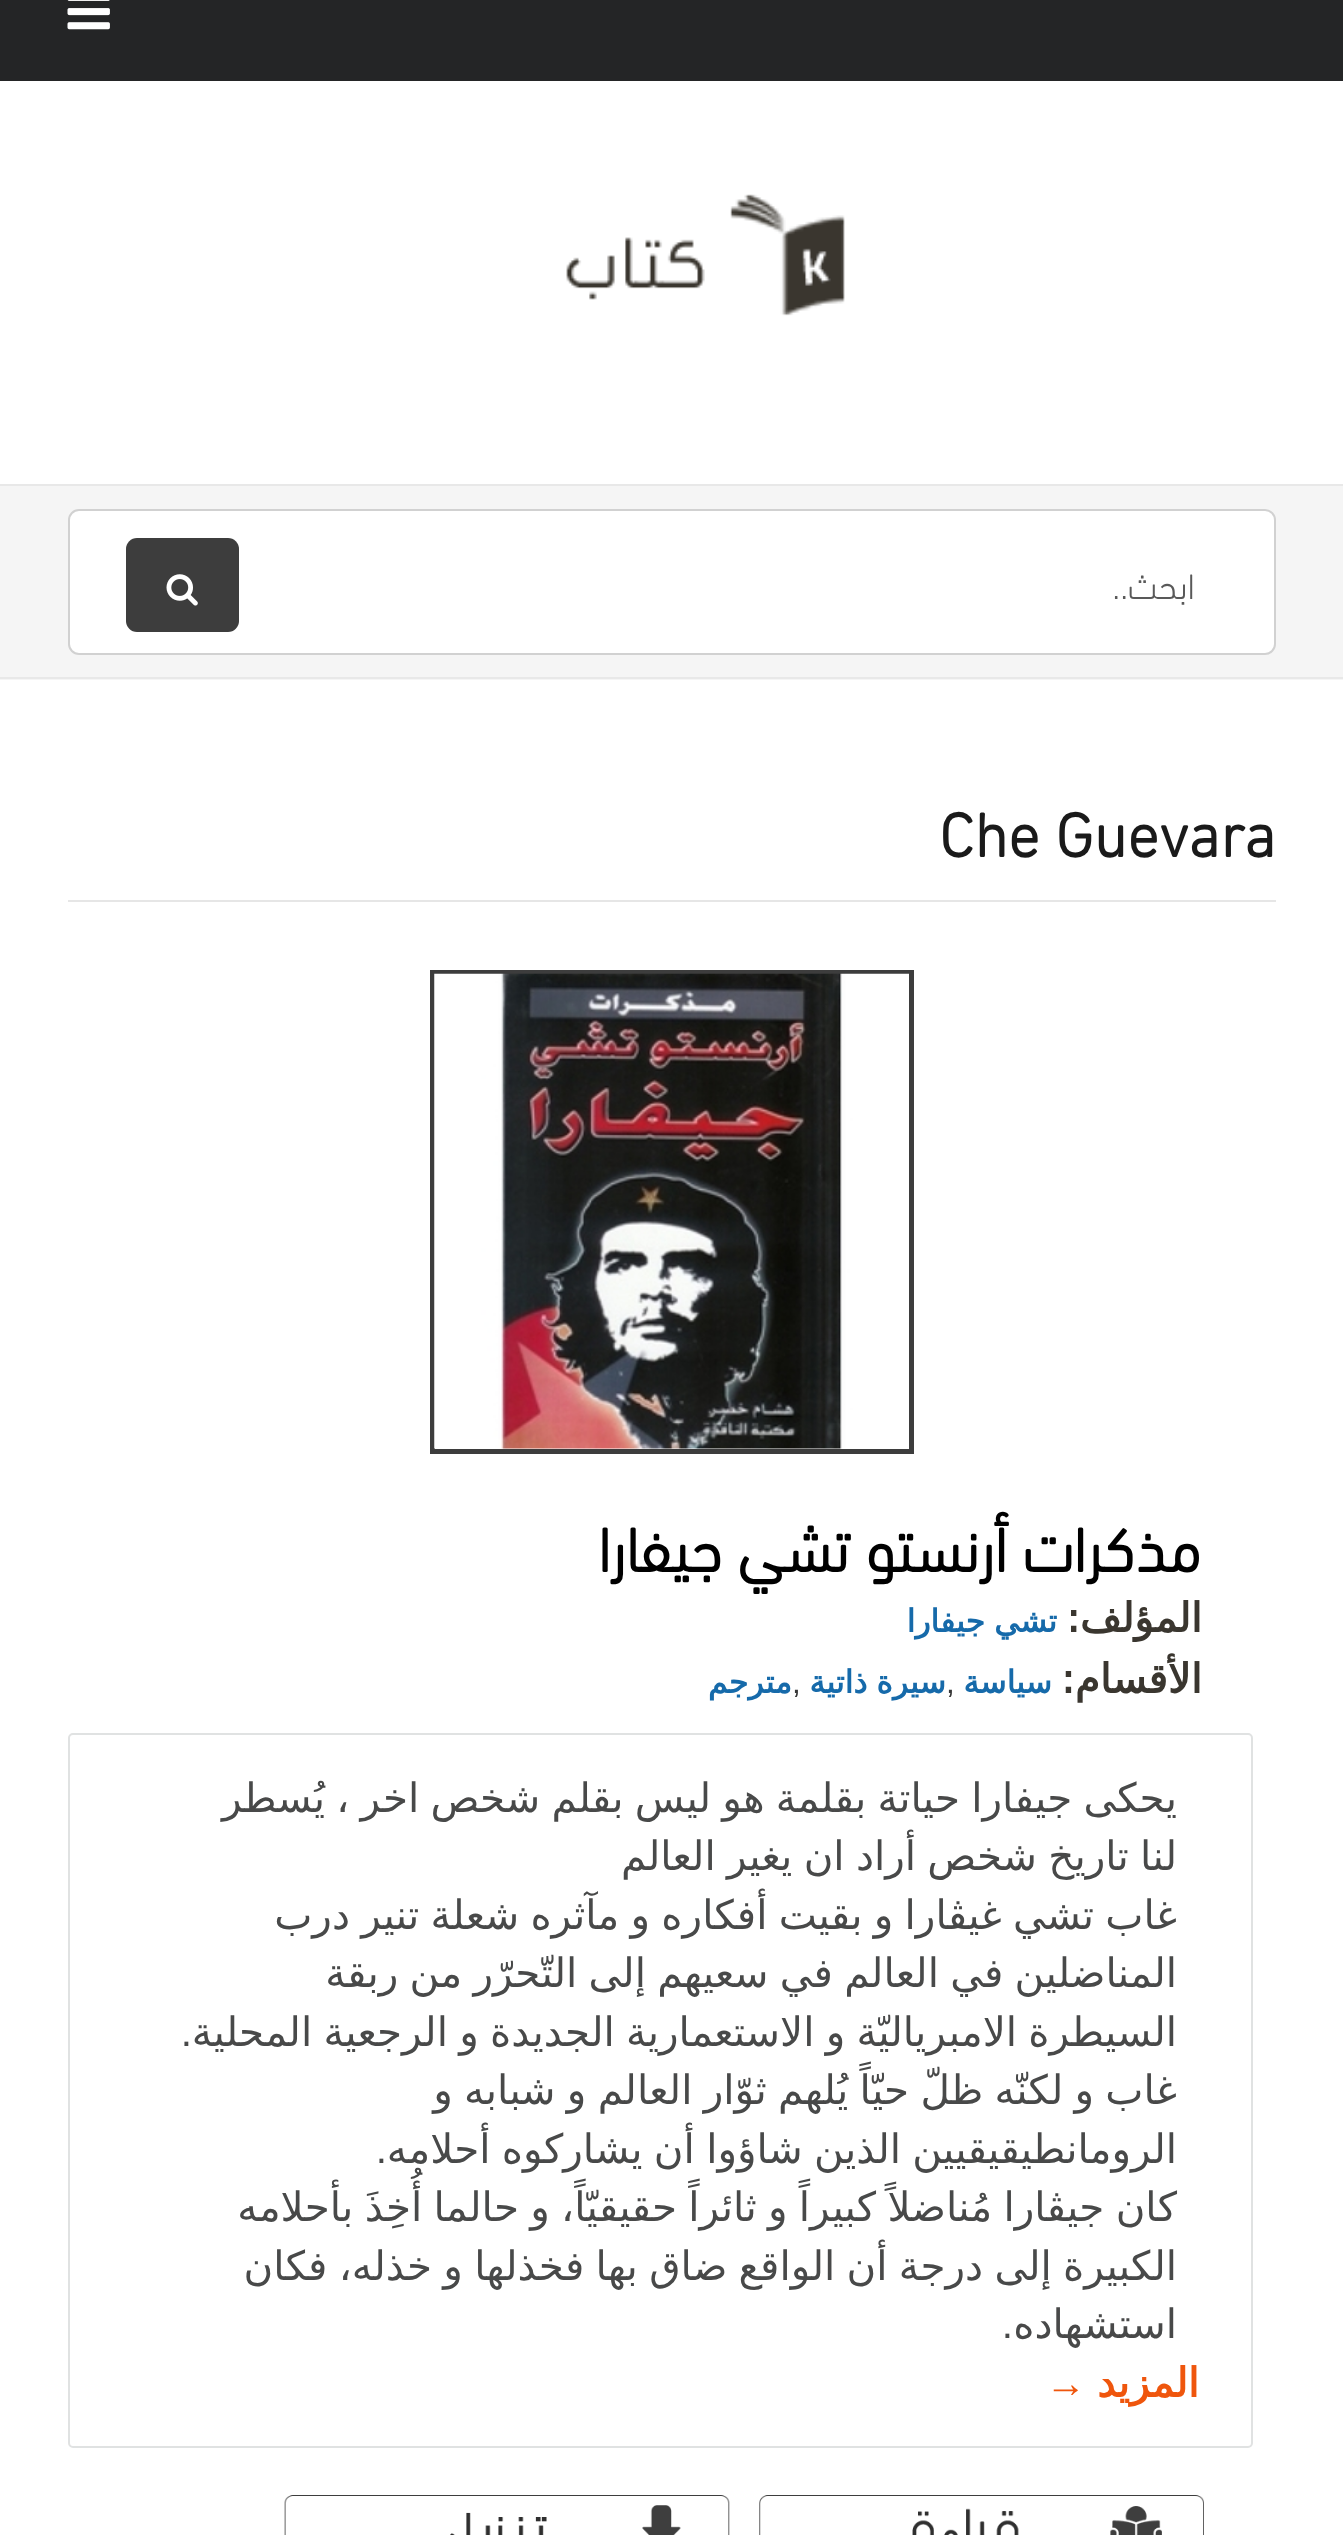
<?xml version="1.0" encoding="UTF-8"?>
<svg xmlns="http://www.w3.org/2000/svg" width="1343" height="2535">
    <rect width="100%" height="100%" fill="#FFFFFF"/>
    <rect x="0" y="0" width="1343" height="81" fill="#242526"/>
    <image x="67" y="0" width="43" height="30" href="img_01.png"/>
    <image x="566" y="194" width="279" height="122" href="img_02.png"/>
    <rect x="0" y="486" width="1343" height="194" fill="#F5F5F5"/>
    <rect x="0" y="484" width="1343" height="2" fill="#E8E8E8"/>
    <rect x="0" y="677" width="1343" height="2" fill="#E8E8E8"/>
    <rect x="69" y="510" width="1206" height="144" rx="10" fill="#FFFFFF" stroke="#D1D1D1" stroke-width="2"/>
    <text x="1195" y="599" font-family="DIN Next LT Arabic" font-size="36" font-weight="300" direction="rtl" fill="#595959">ابحث..</text>
    <rect x="126" y="538" width="113" height="94" rx="11" fill="#3D3D3D"/>
    <image x="166" y="574" width="32" height="32" href="img_03.png"/>
    <rect x="68" y="900" width="1208" height="2" fill="#E6E6E6"/>
    <text x="939" y="857" font-family="DIN Next LT Arabic" font-size="63" font-weight="700" fill="#1A1A1A">Che Guevara</text>
    <rect x="432.5" y="972.5" width="479" height="479" fill="none" stroke="#3D3D3D" stroke-width="5"/>
    <image x="434" y="973" width="475" height="476" href="img_04.png"/>
    <text x="1201" y="1572" font-family="DIN Next LT Arabic" font-size="63" font-weight="700" direction="rtl" fill="#000000">مذكرات أرنستو تشي جيفارا</text>
    <text x="1202" y="1632" font-family="DejaVu Sans" font-size="40.5" font-weight="700" direction="rtl" fill="#3A362F">المؤلف:</text>
    <text x="1057" y="1632" word-spacing="-1" font-family="DejaVu Sans" font-size="31.5" font-weight="700" direction="rtl" fill="#166AAA">تشي جيفارا</text>
    <text x="1202" y="1693" font-family="DejaVu Sans" font-size="40.5" font-weight="700" direction="rtl" fill="#3A362F">الأقسام:</text>
    <text x="1052" y="1693" font-family="DejaVu Sans" font-size="31.5" font-weight="700" direction="rtl" fill="#166AAA">سياسة</text>
    <text x="946" y="1693" font-family="Liberation Sans" font-size="31.5" fill="#383838">,</text>
    <text x="946" y="1693" word-spacing="-1" font-family="DejaVu Sans" font-size="31.5" font-weight="700" direction="rtl" fill="#166AAA">سيرة ذاتية</text>
    <text x="792" y="1693" font-family="Liberation Sans" font-size="31.5" fill="#383838">,</text>
    <text x="792" y="1693" font-family="DejaVu Sans" font-size="31.5" font-weight="700" direction="rtl" fill="#166AAA">مترجم</text>
    <rect x="69" y="1734" width="1183" height="713" rx="4" fill="none" stroke="#E0E2E2" stroke-width="2"/>
    <text font-family="DejaVu Sans" font-size="40.5" direction="rtl" fill="#484949">
        <tspan x="1177" y="1812" word-spacing="-1.6">يحكى جيفارا حياتة بقلمة هو ليس بقلم شخص اخر ، يُسطر</tspan>
        <tspan x="1177" y="1870" word-spacing="-1.6">لنا تاريخ شخص أراد ان يغير العالم</tspan>
        <tspan x="1177" y="1929" word-spacing="-1.6">غاب تشي غيڤارا و بقيت أفكاره و مآثره شعلة تنير درب</tspan>
        <tspan x="1177" y="1987" word-spacing="-1.6">المناضلين في العالم في سعيهم إلى التّحرّر من ربقة</tspan>
        <tspan x="1177" y="2046" word-spacing="-1.6">السيطرة الامبرياليّة و الاستعمارية الجديدة و الرجعية المحلية</tspan>
    </text>
    <text x="192" y="2046" font-family="Liberation Sans" font-size="40.5" direction="rtl" fill="#484949">.</text>
    <text font-family="DejaVu Sans" font-size="40.5" direction="rtl" fill="#484949">
        <tspan x="1177" y="2104" word-spacing="-1.6">غاب و لكنّه ظلّ حيّاً يُلهم ثوّار العالم و شبابه و</tspan>
        <tspan x="1177" y="2163" word-spacing="-1.6">الرومانطيقيقيين الذين شاؤوا أن يشاركوه أحلامه</tspan>
    </text>
    <text x="387" y="2163" font-family="Liberation Sans" font-size="40.5" direction="rtl" fill="#484949">.</text>
    <text font-family="DejaVu Sans" font-size="40.5" direction="rtl" fill="#484949">
        <tspan x="1177" y="2221" word-spacing="-1.6">كان جيڤارا مُناضلاً كبيراً و ثائراً حقيقيّاً، و حالما أُخِذَ بأحلامه</tspan>
        <tspan x="1177" y="2280" word-spacing="-1.6">الكبيرة إلى درجة أن الواقع ضاق بها فخذلها و خذله، فكان</tspan>
        <tspan x="1177" y="2338">استشهاده</tspan>
    </text>
    <text x="1013" y="2338" font-family="Liberation Sans" font-size="40.5" direction="rtl" fill="#484949">.</text>
    <text x="1199" y="2397" font-family="DejaVu Sans" font-size="40.5" font-weight="700" direction="rtl" fill="#EF560D">المزيد</text>
    <text x="1086" y="2397" font-family="Liberation Sans" font-size="40.5" font-weight="700" direction="rtl" fill="#EF560D">→</text>
    <image x="759" y="2495" width="445" height="40" href="img_05.png"/>
    <image x="284" y="2495" width="446" height="40" href="img_06.png"/>
</svg>
